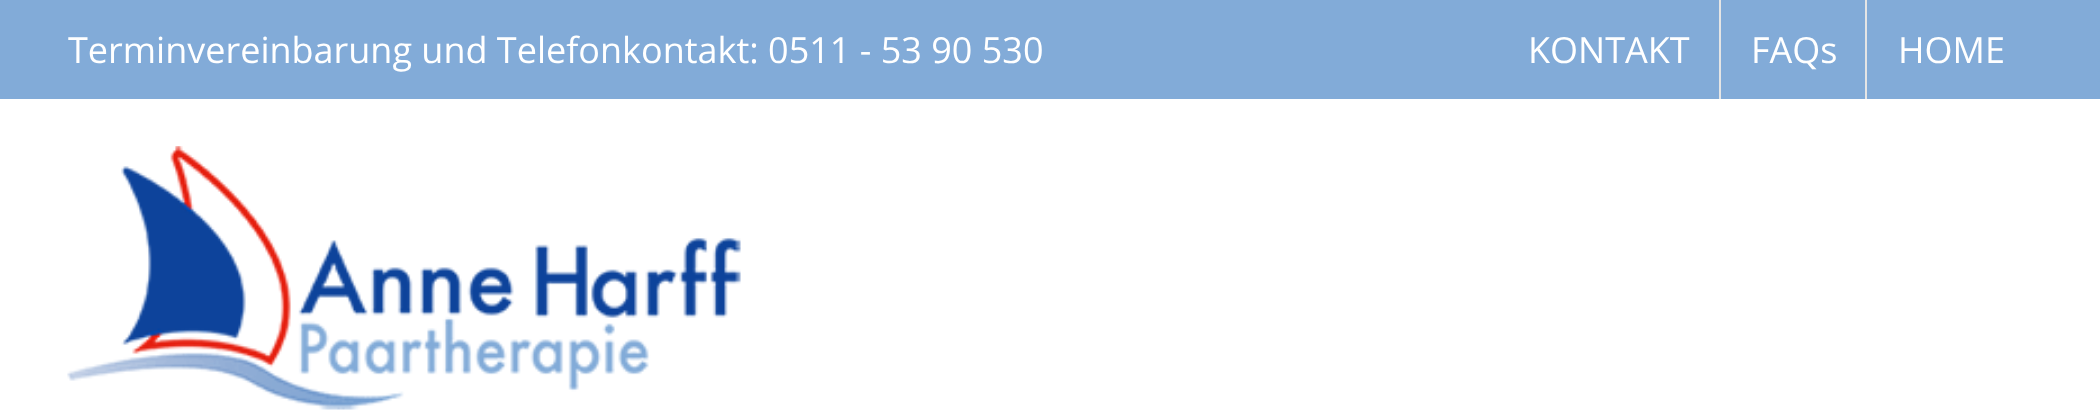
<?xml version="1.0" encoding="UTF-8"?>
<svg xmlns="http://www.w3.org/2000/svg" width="2100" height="417">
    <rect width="100%" height="100%" fill="#82ABD8"/>
    <rect x="0" y="99" width="2100" height="318" fill="#FFFFFF"/>
    <text x="68" y="63" font-family="Open Sans" font-size="36" fill="#FFFFFF">Terminvereinbarung und Telefonkontakt: 0511 - 53 90 530</text>
    <text x="1528" y="63" font-family="Open Sans" font-size="36" fill="#FFFFFF">KONTAKT</text>
    <rect x="1719" y="0" width="2" height="99" fill="#E5E5E5"/>
    <text x="1751" y="63" font-family="Open Sans" font-size="36" fill="#FFFFFF">FAQs</text>
    <rect x="1865" y="0" width="2" height="99" fill="#E5E5E5"/>
    <text x="1898" y="63" font-family="Open Sans" font-size="36" fill="#FFFFFF">HOME</text>
    <image x="67" y="146" width="674" height="264" href="img_01.png"/>
</svg>
